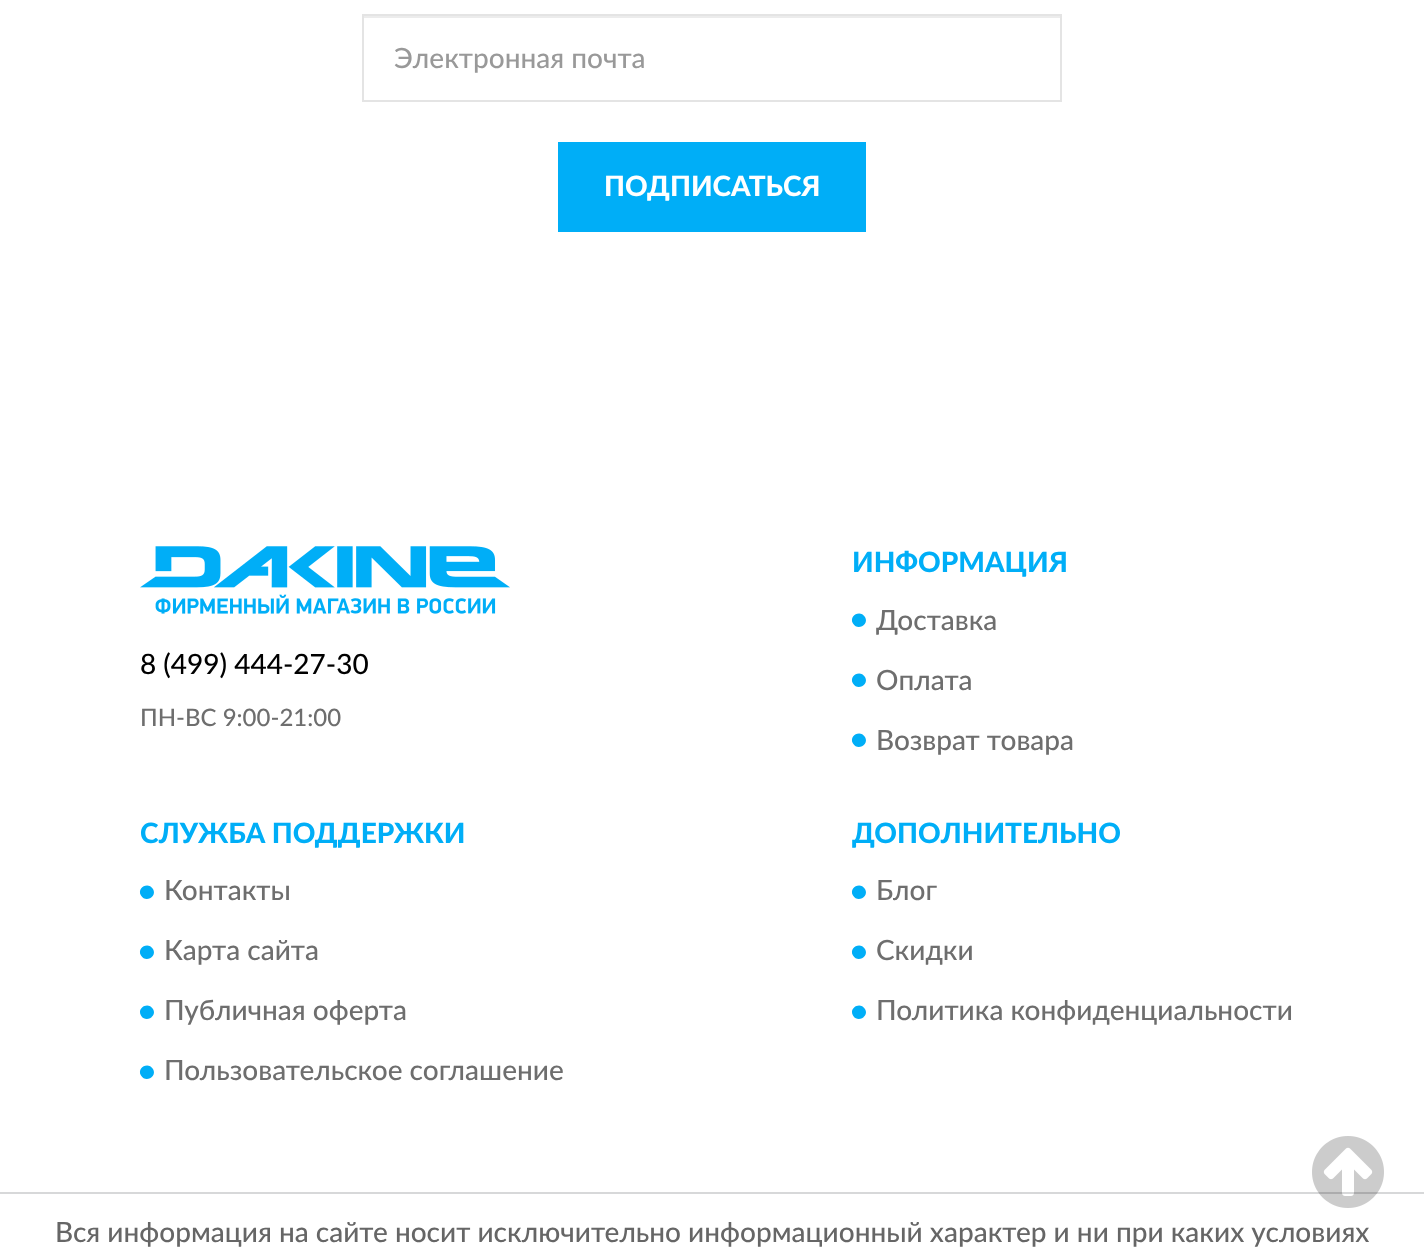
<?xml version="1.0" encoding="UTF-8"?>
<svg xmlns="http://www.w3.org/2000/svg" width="1424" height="1253">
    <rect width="100%" height="100%" fill="#FFFFFF"/>
    <rect x="364" y="16" width="696" height="2" fill="#ECECEC"/>
    <rect x="363" y="15" width="698" height="86" fill="none" stroke="#E4E4E4" stroke-width="2"/>
    <text x="394" y="68" font-family="Lato" font-size="28" font-weight="500" fill="#999999">Электронная почта</text>
    <rect x="558" y="142" width="308" height="90" fill="#00AEF7"/>
    <text x="604" y="196" font-family="Lato" font-size="28" font-weight="900" fill="#FFFFFF">ПОДПИСАТЬСЯ</text>
    <image x="140" y="546" width="370" height="68" href="img_01.png"/>
    <text x="140" y="674" font-family="Lato" font-size="28" font-weight="500" fill="#000000">8 (499) 444-27-30</text>
    <text x="140" y="726" font-family="Lato" font-size="24" font-weight="500" fill="#6E6E6E">ПН-ВС 9:00-21:00</text>
    <text x="852" y="572" font-family="Lato" font-size="28" font-weight="900" fill="#00AEF7">ИНФОРМАЦИЯ</text>
    <path d="M 865 617 C 869.5 624.5 857.5 631.5 853 623.5 C 848.5 616 860 609 865 617 Z" fill="#00AEF7"/>
    <text x="876" y="630" font-family="Lato" font-size="28" font-weight="500" fill="#6E6E6E">Доставка</text>
    <path d="M 865 677 C 869.5 684.5 857.5 691.5 853 683.5 C 848.5 676 860 669 865 677 Z" fill="#00AEF7"/>
    <text x="876" y="690" font-family="Lato" font-size="28" font-weight="500" fill="#6E6E6E">Оплата</text>
    <path d="M 865 737 C 869.5 744.5 857.5 751.5 853 743.5 C 848.5 736 860 729 865 737 Z" fill="#00AEF7"/>
    <text x="876" y="750" font-family="Lato" font-size="28" font-weight="500" fill="#6E6E6E">Возврат товара</text>
    <text x="140" y="843" font-family="Lato" font-size="28" font-weight="900" fill="#00AEF7">СЛУЖБА ПОДДЕРЖКИ</text>
    <path d="M 153 889 C 157.5 896.5 145.5 903.5 141 895.5 C 136.5 888 148 881 153 889 Z" fill="#00AEF7"/>
    <text x="164" y="900" font-family="Lato" font-size="28" font-weight="500" fill="#6E6E6E">Контакты</text>
    <path d="M 153 949 C 157.5 956.5 145.5 963.5 141 955.5 C 136.5 948 148 941 153 949 Z" fill="#00AEF7"/>
    <text x="164" y="960" font-family="Lato" font-size="28" font-weight="500" fill="#6E6E6E">Карта сайта</text>
    <path d="M 153 1009 C 157.5 1016.5 145.5 1023.5 141 1015.5 C 136.5 1008 148 1001 153 1009 Z" fill="#00AEF7"/>
    <text x="164" y="1020" font-family="Lato" font-size="28" font-weight="500" fill="#6E6E6E">Публичная оферта</text>
    <path d="M 153 1069 C 157.5 1076.5 145.5 1083.5 141 1075.5 C 136.5 1068 148 1061 153 1069 Z" fill="#00AEF7"/>
    <text x="164" y="1080" font-family="Lato" font-size="28" font-weight="500" fill="#6E6E6E">Пользовательское соглашение</text>
    <text x="852" y="843" font-family="Lato" font-size="28" font-weight="900" fill="#00AEF7">ДОПОЛНИТЕЛЬНО</text>
    <path d="M 865 889 C 869.5 896.5 857.5 903.5 853 895.5 C 848.5 888 860 881 865 889 Z" fill="#00AEF7"/>
    <text x="876" y="900" font-family="Lato" font-size="28" font-weight="500" fill="#6E6E6E">Блог</text>
    <path d="M 865 949 C 869.5 956.5 857.5 963.5 853 955.5 C 848.5 948 860 941 865 949 Z" fill="#00AEF7"/>
    <text x="876" y="960" font-family="Lato" font-size="28" font-weight="500" fill="#6E6E6E">Скидки</text>
    <path d="M 865 1009 C 869.5 1016.5 857.5 1023.5 853 1015.5 C 848.5 1008 860 1001 865 1009 Z" fill="#00AEF7"/>
    <text x="876" y="1020" font-family="Lato" font-size="28" font-weight="500" fill="#6E6E6E">Политика конфиденциальности</text>
    <rect x="0" y="1192" width="1424" height="2" fill="#D7D8D9"/>
    <text x="55" y="1242" font-family="Lato" font-size="28" font-weight="500" fill="#666666">Вся информация на сайте носит исключительно информационный характер и ни при каких условиях</text>
    <image x="1312" y="1136" width="72" height="72" href="img_02.png"/>
</svg>
